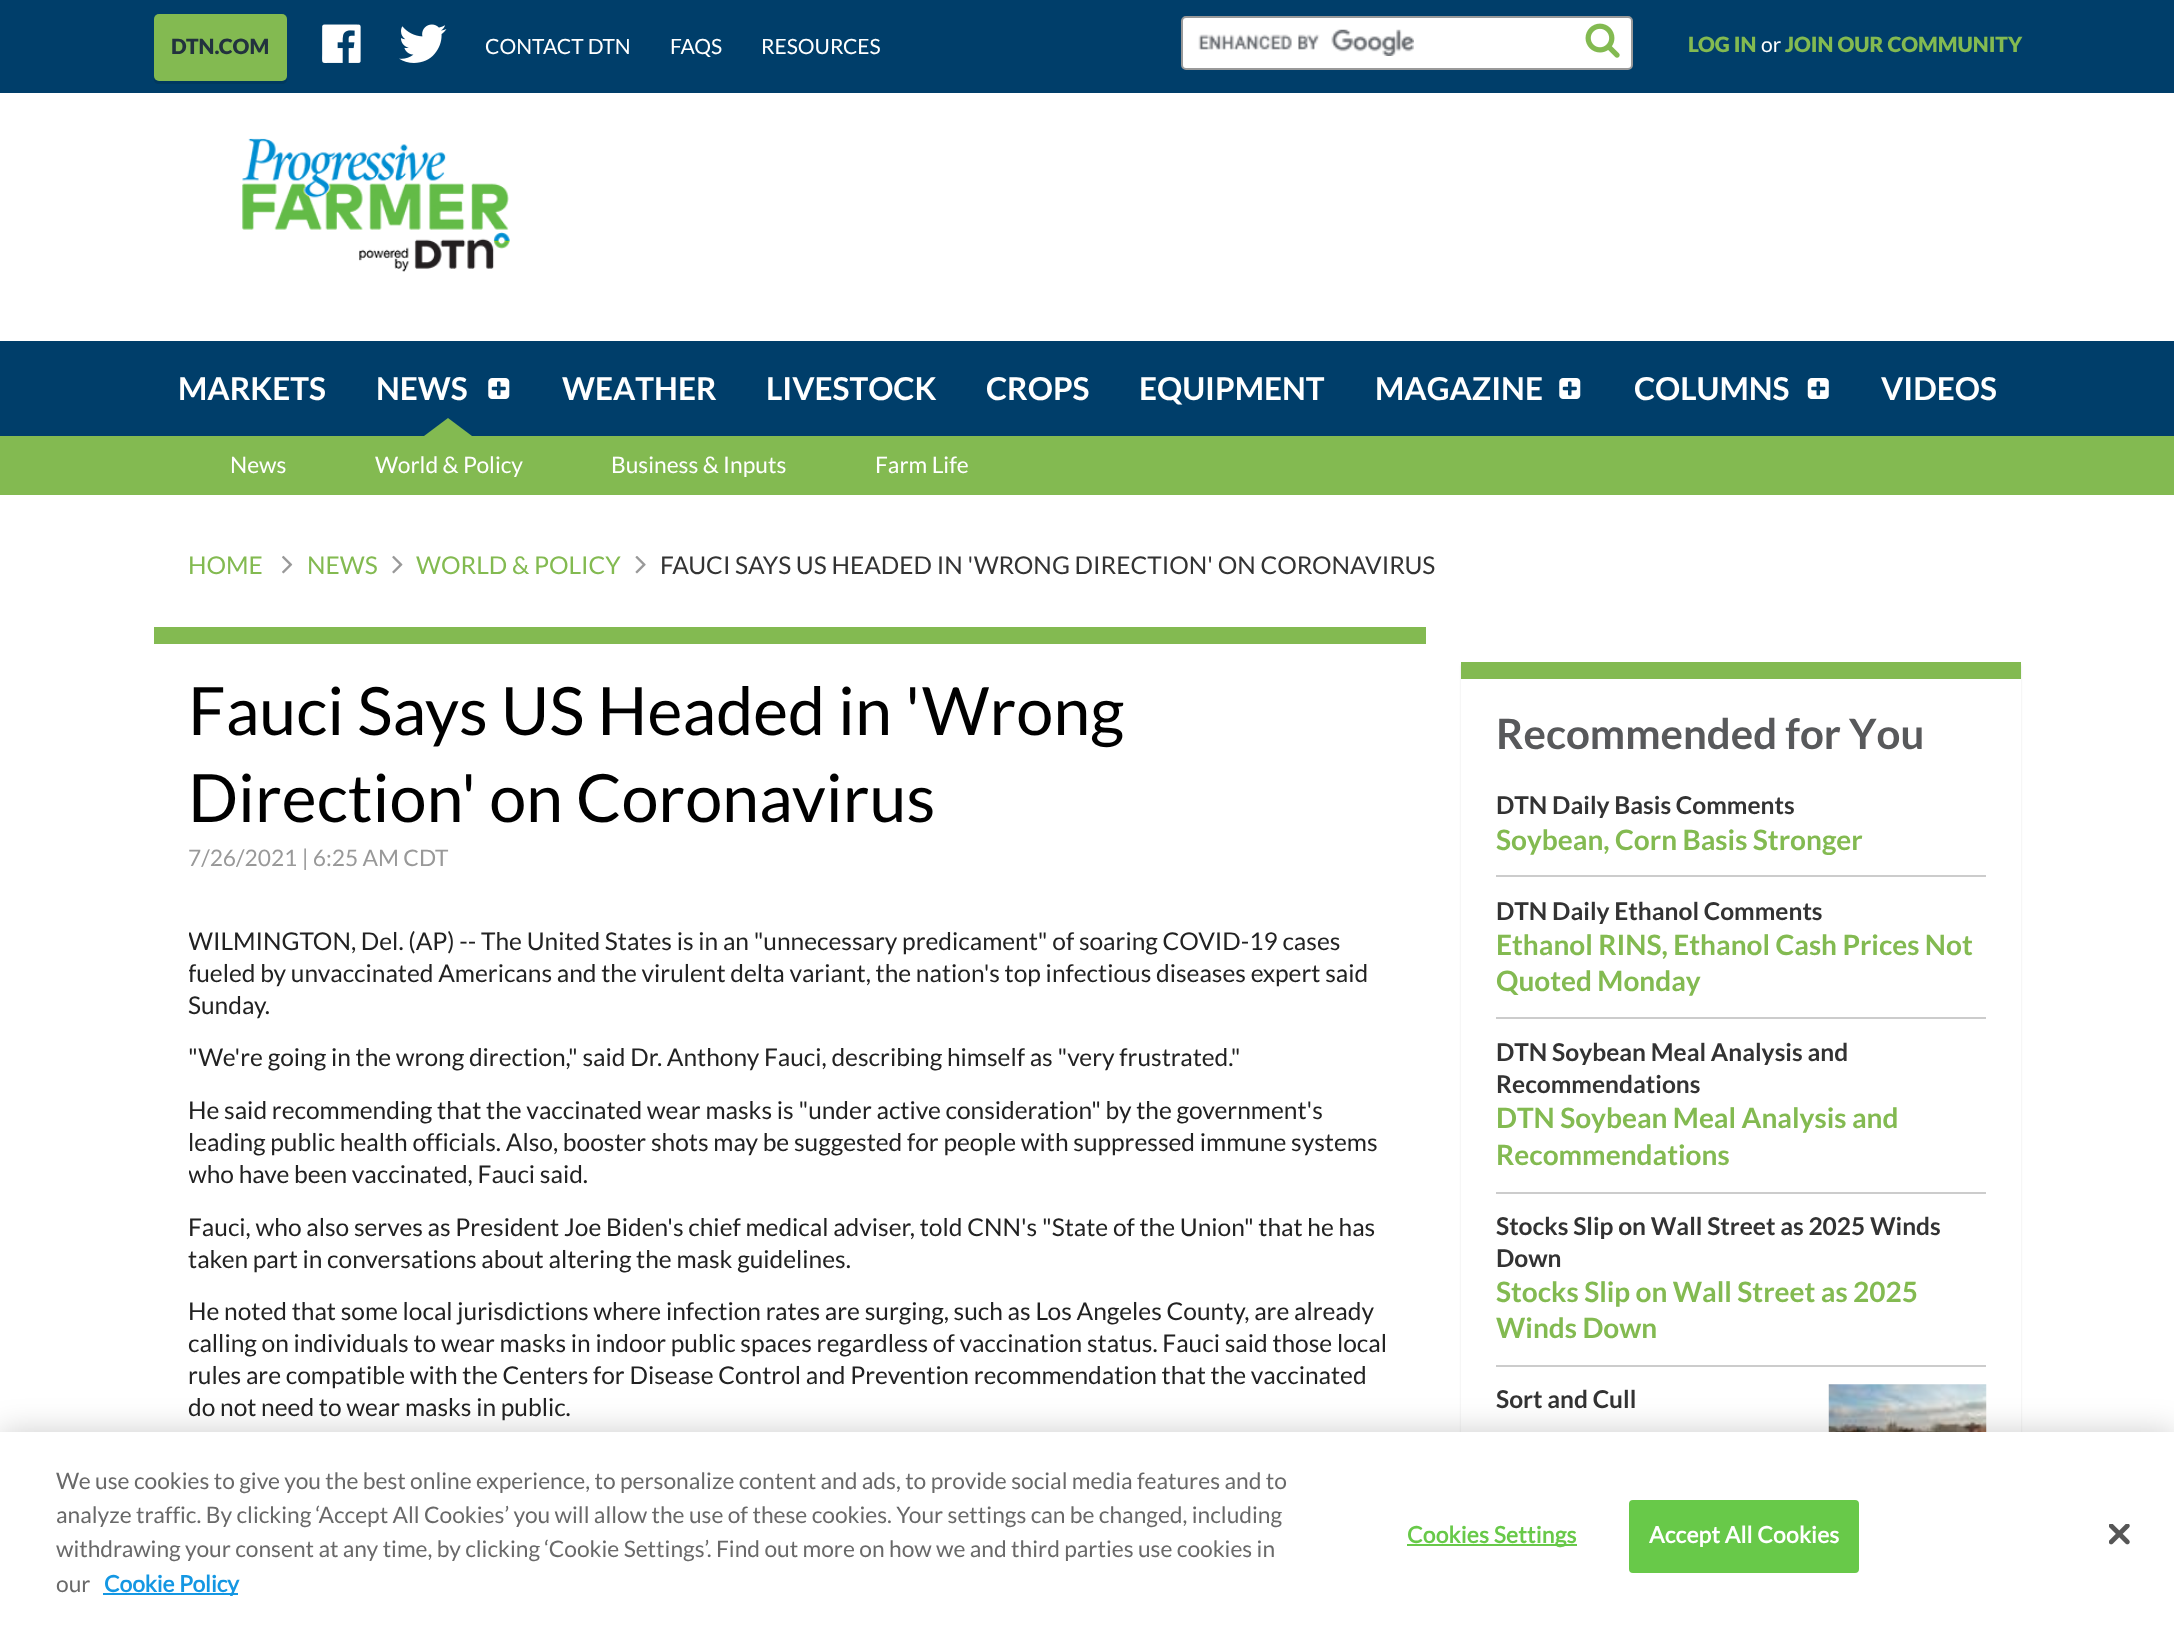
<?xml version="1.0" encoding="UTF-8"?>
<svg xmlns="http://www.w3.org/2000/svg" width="2174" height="1643">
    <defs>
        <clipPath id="clip1"><rect x="189" y="903" width="1202" height="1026"/></clipPath>
        <filter id="blur1" x="-50%" y="-200%" width="200%" height="500%"><feGaussianBlur stdDeviation="1"/></filter>
        <filter id="blur2" x="-50%" y="-200%" width="200%" height="500%"><feGaussianBlur stdDeviation="16"/></filter>
    </defs>
    <rect width="100%" height="100%" fill="#FFFFFF"/>
    <rect x="0" y="0" width="2174" height="93" fill="#003E6A"/>
    <path d="M 154 75 V 79 C 154 82 156 84 159 84 H 282 C 285 84 287 82 287 79 V 75 C 287 78 285 80 282 80 H 159 C 156 80 154 78 154 75 Z" fill="#00385F"/>
    <rect x="154" y="14" width="133" height="67" rx="5" fill="#83BA51"/>
    <text x="171" y="54" font-family="Lato" font-size="21" font-weight="900" fill="#22323E">DTN.COM</text>
    <image x="322" y="24" width="39" height="39" href="img_01.png"/>
    <image x="399" y="24" width="48" height="39" href="img_02.png"/>
    <text x="485" y="54" font-family="Lato" font-size="21" fill="#FFFFFF">CONTACT DTN</text>
    <text x="670" y="54" font-family="Lato" font-size="21" fill="#FFFFFF">FAQS</text>
    <text x="761" y="54" font-family="Lato" font-size="21" fill="#FFFFFF">RESOURCES</text>
    <rect x="1182" y="17" width="450" height="52" rx="4" fill="#FFFFFF" stroke="#999999" stroke-width="2"/>
    <image x="1198" y="29" width="216" height="27" href="img_03.png"/>
    <image x="1585" y="23" width="35" height="35" href="img_04.png"/>
    <text x="1688" y="52" font-family="Lato" font-size="21" font-weight="900" fill="#83BA51">LOG IN</text>
    <text x="1761" y="52" font-family="Lato" font-size="21" fill="#FFFFFF">or</text>
    <text x="1785" y="52" font-family="Lato" font-size="21" font-weight="900" fill="#83BA51">JOIN OUR COMMUNITY</text>
    <image x="242" y="138" width="268" height="134" href="img_05.png"/>
    <rect x="0" y="341" width="2174" height="95" fill="#003E6A"/>
    <text x="178" y="400" font-family="Lato" font-size="31.5" font-weight="700" fill="#FFFFFF">MARKETS</text>
    <text x="376" y="400" font-family="Lato" font-size="31.5" font-weight="700" fill="#FFFFFF">NEWS</text>
    <path d="M 472 436 H 424 L 448 418 Z" fill="#83BA51"/>
    <image x="488" y="378" width="22" height="21" href="img_06.png"/>
    <text x="562" y="400" font-family="Lato" font-size="31.5" font-weight="700" fill="#FFFFFF">WEATHER</text>
    <text x="766" y="400" font-family="Lato" font-size="31.5" font-weight="700" fill="#FFFFFF">LIVESTOCK</text>
    <text x="986" y="400" font-family="Lato" font-size="31.5" font-weight="700" fill="#FFFFFF">CROPS</text>
    <text x="1139" y="400" font-family="Lato" font-size="31.5" font-weight="700" fill="#FFFFFF">EQUIPMENT</text>
    <text x="1375" y="400" font-family="Lato" font-size="31.5" font-weight="700" fill="#FFFFFF">MAGAZINE</text>
    <image x="1559" y="378" width="22" height="21" href="img_06.png"/>
    <text x="1634" y="400" font-family="Lato" font-size="31.5" font-weight="700" fill="#FFFFFF">COLUMNS</text>
    <image x="1807" y="378" width="22" height="21" href="img_07.png"/>
    <text x="1881" y="400" font-family="Lato" font-size="31.5" font-weight="700" fill="#FFFFFF">VIDEOS</text>
    <rect x="0" y="436" width="2174" height="59" fill="#83BA51"/>
    <text x="230" y="473" font-family="Lato" font-size="22.75" fill="#FFFFFF">News</text>
    <text x="375" y="473" font-family="Lato" font-size="22.75" fill="#FFFFFF">World &amp; Policy</text>
    <text x="611" y="473" font-family="Lato" font-size="22.75" fill="#FFFFFF">Business &amp; Inputs</text>
    <text x="875" y="473" font-family="Lato" font-size="22.75" fill="#FFFFFF">Farm Life</text>
    <text x="188" y="574" font-family="Lato" font-size="24.5" fill="#83BA51">HOME</text>
    <image x="282" y="555" width="11" height="19" href="img_08.png"/>
    <text x="307" y="574" font-family="Lato" font-size="24.5" fill="#83BA51">NEWS</text>
    <image x="392" y="555" width="11" height="19" href="img_09.png"/>
    <text x="416" y="574" font-family="Lato" font-size="24.5" fill="#83BA51">WORLD &amp; POLICY</text>
    <image x="635" y="556" width="11" height="18" href="img_10.png"/>
    <text x="660" y="574" font-family="Lato" font-size="24.5" fill="#333333">FAUCI SAYS US HEADED IN 'WRONG DIRECTION' ON CORONAVIRUS</text>
    <rect x="154" y="627" width="1272" height="17" fill="#83BA51"/>
    <text font-family="Lato" font-size="66.5" fill="#000000">
        <tspan x="188" y="735">Fauci Says US Headed in 'Wrong</tspan>
        <tspan x="188" y="822">Direction' on Coronavirus</tspan>
    </text>
    <text x="188" y="866" font-family="Lato" font-size="22.75" fill="#999999">7/26/2021 | 6:25 AM CDT</text>
    <g clip-path="url(#clip1)">
        <text font-family="Lato" font-size="24.5" fill="#222222">
            <tspan x="188" y="950">WILMINGTON, Del. (AP) -- The United States is in an "unnecessary predicament" of soaring COVID-19 cases</tspan>
            <tspan x="188" y="982">fueled by unvaccinated Americans and the virulent delta variant, the nation's top infectious diseases expert said</tspan>
        </text>
    </g>
    <text x="188" y="1014" font-family="Lato" font-size="24.5" fill="#222222">Sunday.</text>
    <text x="188" y="1066" font-family="Lato" font-size="24.5" fill="#222222">"We're going in the wrong direction," said Dr. Anthony Fauci, describing himself as "very frustrated."</text>
    <text font-family="Lato" font-size="24.5" fill="#222222">
        <tspan x="188" y="1119">He said recommending that the vaccinated wear masks is "under active consideration" by the government's</tspan>
        <tspan x="188" y="1151">leading public health officials. Also, booster shots may be suggested for people with suppressed immune systems</tspan>
    </text>
    <g clip-path="url(#clip1)">
        <text x="188" y="1183" font-family="Lato" font-size="24.5" fill="#222222">who have been vaccinated, Fauci said.</text>
    </g>
    <text font-family="Lato" font-size="24.5" fill="#222222">
        <tspan x="188" y="1236">Fauci, who also serves as President Joe Biden's chief medical adviser, told CNN's "State of the Union" that he has</tspan>
        <tspan x="188" y="1268">taken part in conversations about altering the mask guidelines.</tspan>
    </text>
    <text font-family="Lato" font-size="24.5" fill="#222222">
        <tspan x="188" y="1320">He noted that some local jurisdictions where infection rates are surging, such as Los Angeles County, are already</tspan>
        <tspan x="188" y="1352">calling on individuals to wear masks in indoor public spaces regardless of vaccination status. Fauci said those local</tspan>
        <tspan x="188" y="1384">rules are compatible with the Centers for Disease Control and Prevention recommendation that the vaccinated</tspan>
        <tspan x="188" y="1416">do not need to wear masks in public.</tspan>
    </text>
    <rect x="1461" y="665" width="560" height="900" fill="#000000" fill-opacity="0.1" filter="url(#blur1)"/>
    <rect x="1461" y="679" width="560" height="753" fill="#FFFFFF"/>
    <rect x="1461" y="662" width="560" height="17" fill="#83BA51"/>
    <text x="1496" y="749" font-family="Lato" font-size="42" font-weight="700" fill="#58595B">Recommended for You</text>
    <text x="1496" y="814" font-family="Lato" font-size="24.5" font-weight="700" fill="#333333">DTN Daily Basis Comments</text>
    <text x="1496" y="850" font-family="Lato" font-size="28" font-weight="700" fill="#83BA51">Soybean, Corn Basis Stronger</text>
    <rect x="1496" y="875" width="490" height="2" fill="#CCCCCC"/>
    <text x="1496" y="920" font-family="Lato" font-size="24.5" font-weight="700" fill="#333333">DTN Daily Ethanol Comments</text>
    <text font-family="Lato" font-size="28" font-weight="700" fill="#83BA51">
        <tspan x="1496" y="955">Ethanol RINS, Ethanol Cash Prices Not</tspan>
        <tspan x="1496" y="991">Quoted Monday</tspan>
    </text>
    <rect x="1496" y="1017" width="490" height="2" fill="#CCCCCC"/>
    <text font-family="Lato" font-size="24.5" font-weight="700" fill="#333333">
        <tspan x="1496" y="1061">DTN Soybean Meal Analysis and</tspan>
        <tspan x="1496" y="1093">Recommendations</tspan>
    </text>
    <text font-family="Lato" font-size="28" font-weight="700" fill="#83BA51">
        <tspan x="1496" y="1128">DTN Soybean Meal Analysis and</tspan>
        <tspan x="1496" y="1165">Recommendations</tspan>
    </text>
    <rect x="1496" y="1192" width="490" height="2" fill="#CCCCCC"/>
    <text font-family="Lato" font-size="24.5" font-weight="700" fill="#333333">
        <tspan x="1496" y="1235">Stocks Slip on Wall Street as 2025 Winds</tspan>
        <tspan x="1496" y="1267">Down</tspan>
    </text>
    <text font-family="Lato" font-size="28" font-weight="700" fill="#83BA51">
        <tspan x="1496" y="1302">Stocks Slip on Wall Street as 2025</tspan>
        <tspan x="1496" y="1338">Winds Down</tspan>
    </text>
    <rect x="1496" y="1365" width="490" height="2" fill="#CCCCCC"/>
    <text x="1496" y="1408" font-family="Lato" font-size="24.5" font-weight="700" fill="#333333">Sort and Cull</text>
    <image x="1828" y="1384" width="159" height="48" href="img_11.png"/>
    <rect x="0" y="1432" width="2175" height="211" fill="#000000" fill-opacity="0.2" filter="url(#blur2)"/>
    <rect x="0" y="1432" width="2174" height="211" fill="#FFFFFF"/>
    <text font-family="Lato" font-size="22.75" fill="#696969">
        <tspan x="56" y="1489">We use cookies to give you the best online experience, to personalize content and ads, to provide social media features and to</tspan>
        <tspan x="56" y="1523">analyze traffic. By clicking ‘Accept All Cookies’ you will allow the use of these cookies. Your settings can be changed, including</tspan>
        <tspan x="56" y="1557">withdrawing your consent at any time, by clicking ‘Cookie Settings’. Find out more on how we and third parties use cookies in</tspan>
        <tspan x="56" y="1592">our</tspan>
    </text>
    <rect x="103" y="1593" width="135" height="2" fill="#1497E3"/>
    <text x="104" y="1592" font-family="'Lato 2'" font-size="22.75" font-weight="700" fill="#1497E3">Cookie Policy</text>
    <rect x="1407" y="1544" width="170" height="2" fill="#68C949"/>
    <text x="1407" y="1543" font-family="'Lato 2'" font-size="22.75" font-weight="700" letter-spacing="0.25" fill="#68C949">Cookies Settings</text>
    <rect x="1630" y="1501" width="228" height="71" rx="3" fill="#68C949" stroke="#68C949" stroke-width="2"/>
    <text x="1649" y="1543" font-family="'Lato 2'" font-size="22.75" font-weight="700" letter-spacing="0.25" fill="#FFFFFF">Accept All Cookies</text>
    <image x="2109" y="1524" width="21" height="21" href="img_12.png"/>
</svg>
